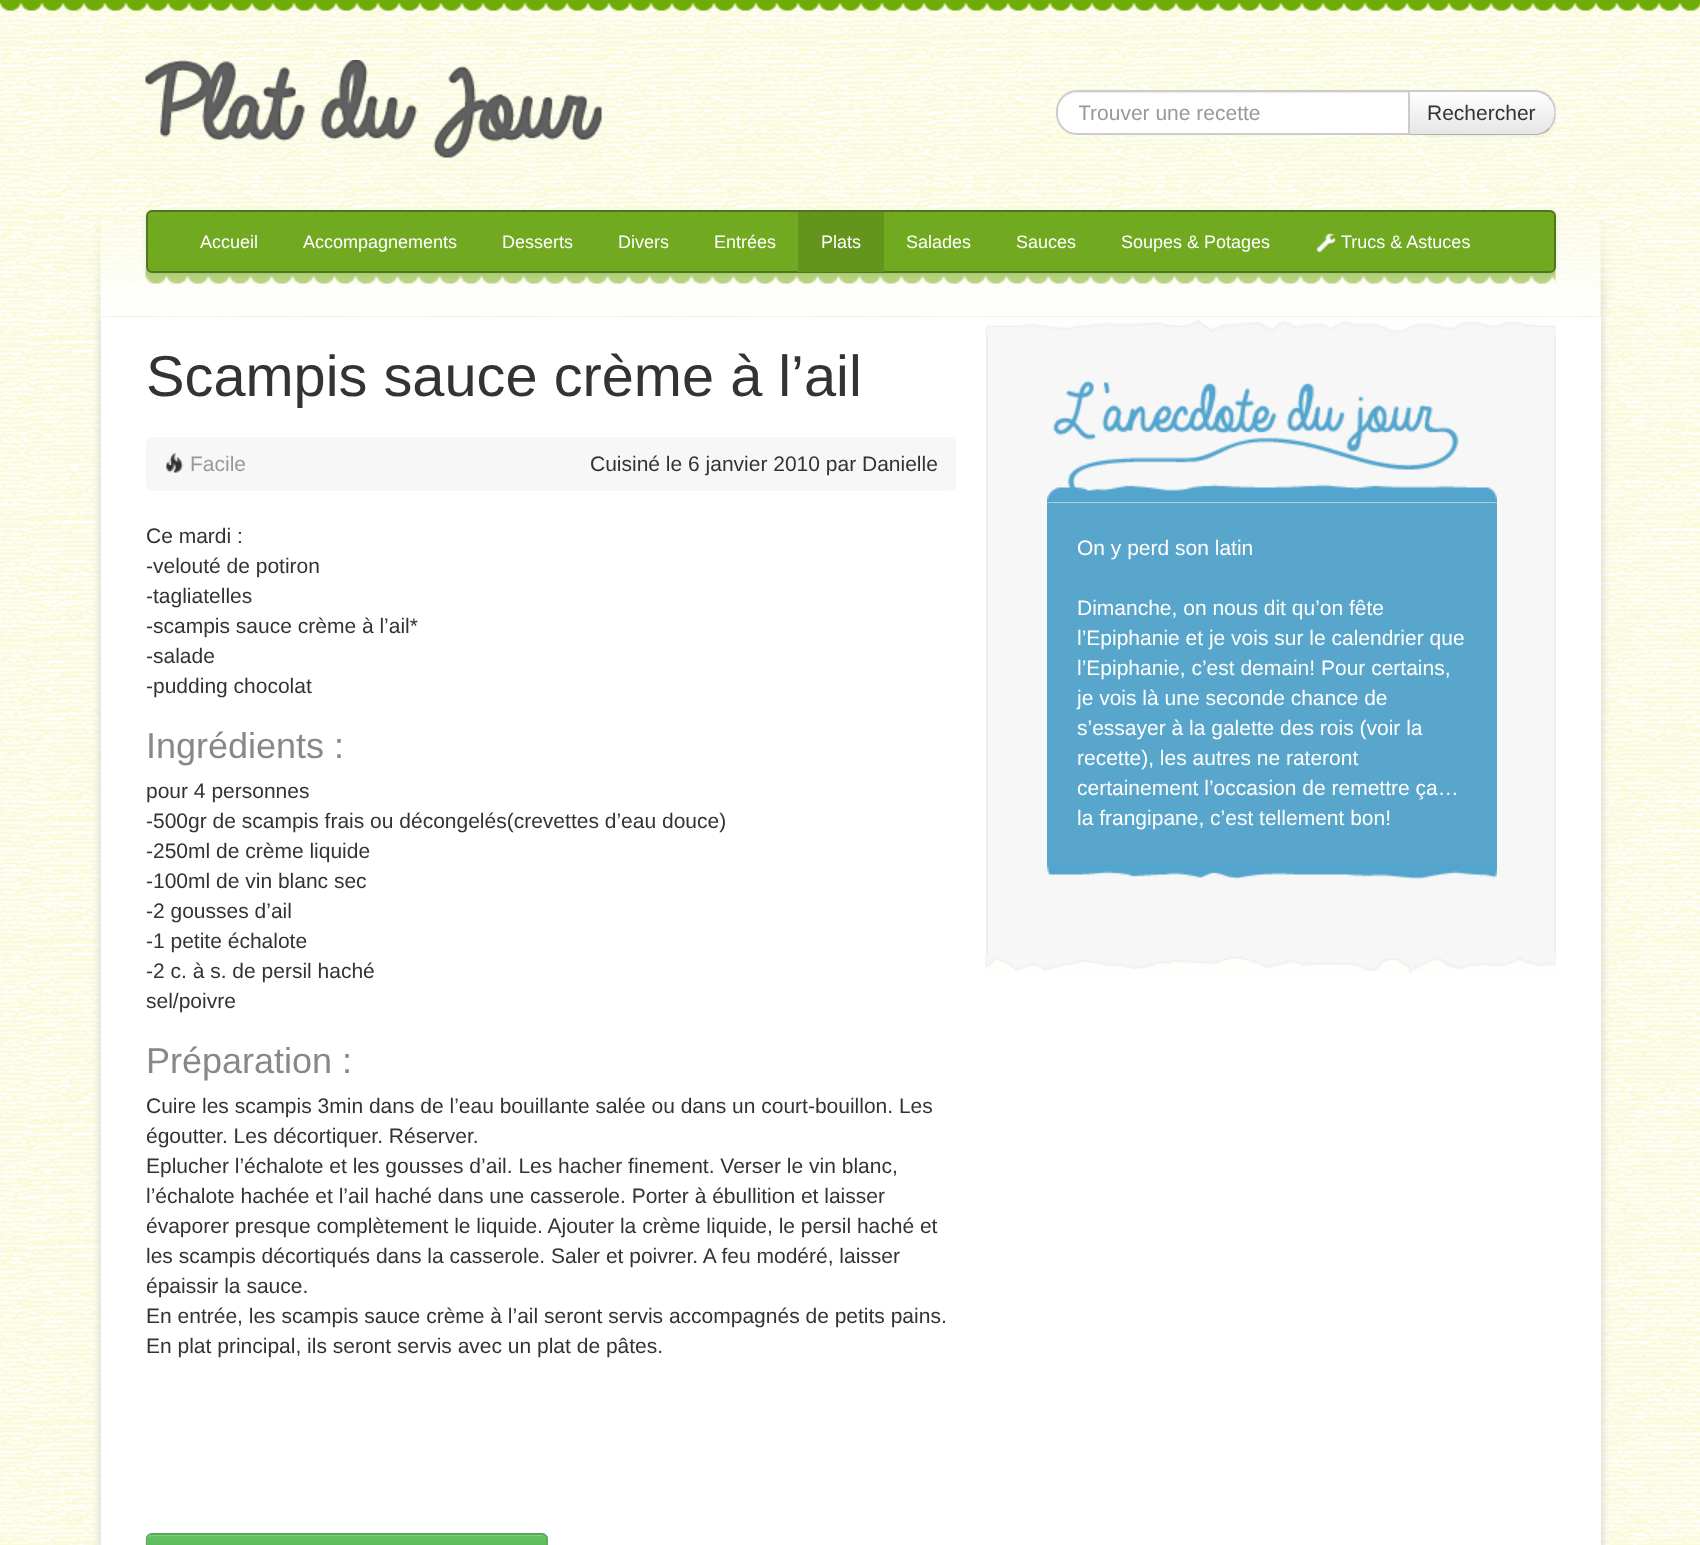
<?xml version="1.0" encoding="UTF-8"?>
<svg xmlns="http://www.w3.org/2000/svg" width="1700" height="1545">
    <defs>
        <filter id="blur1" x="-50%" y="-200%" width="200%" height="500%"><feGaussianBlur stdDeviation="1.5"/></filter>
        <clipPath id="clip1"><path d="M 1409 90 H 1535 C 1546.5 90 1556 99.5 1556 111 V 114 C 1556 125.5 1546.5 135 1535 135 H 1409 Z"/></clipPath>
        <linearGradient id="g1" gradientUnits="userSpaceOnUse" x1="1482" y1="91" x2="1482" y2="134"><stop offset="0" stop-color="#FFFFFF"/><stop offset="1" stop-color="#E6E6E6"/></linearGradient>
        <clipPath id="clip2"><rect x="1079" y="101" width="309" height="24"/></clipPath>
        <filter id="blur2" x="-50%" y="-200%" width="200%" height="500%"><feGaussianBlur stdDeviation="5"/></filter>
        <filter id="blur3" x="-50%" y="-200%" width="200%" height="500%"><feGaussianBlur stdDeviation="3"/></filter>
        <clipPath id="clip3"><rect x="146" y="1533" width="402" height="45" rx="6"/></clipPath>
        <linearGradient id="g2" gradientUnits="userSpaceOnUse" x1="347" y1="1535" x2="347" y2="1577"><stop offset="0" stop-color="#62C462"/><stop offset="1" stop-color="#51A351"/></linearGradient>
    </defs>
    <rect width="100%" height="100%" fill="#FFFFFF"/>
    <image x="0" y="2" width="1700" height="1543" href="img_01.png"/>
    <image x="0" y="0" width="1700" height="11" href="img_02.png"/>
    <image x="145" y="60" width="457" height="98" href="img_03.png"/>
    <rect x="1409" y="92" width="147" height="45" rx="21" fill="#000000" fill-opacity="0.05" filter="url(#blur1)"/>
    <path d="M 1409 90 H 1535 C 1546.5 90 1556 99.5 1556 111 V 114 C 1556 125.5 1546.5 135 1535 135 H 1409 Z" fill="#F5F5F5"/>
    <g clip-path="url(#clip1)">
        <rect x="1410" y="92" width="146" height="42" fill="url(#g1)"/>
    </g>
    <path d="M 1408 90 L 1410 92 H 1534 C 1540 92 1544 94 1548 97 L 1550 96 C 1546 92 1540 90 1534 90 Z" fill="#CCCCCC"/>
    <path d="M 1555.5 118.5 C 1554.5 122.5 1552.5 126 1549.5 129 L 1548.5 128 C 1556 120 1556.5 105 1548 97.5 L 1549.5 96 C 1552.5 99 1554.5 102.5 1555.5 106.5 Z" fill="#CCCCCC"/>
    <path d="M 1408 135 H 1534 C 1540 135 1546 133 1550 129 L 1548 128 C 1545 132 1540 134 1534 134 H 1410 Z" fill="#B3B3B3"/>
    <path d="M 1077 90 H 1410 V 135 H 1077 C 1065.5 135 1056 125.5 1056 114 V 111 C 1056 99.5 1065.5 90 1077 90 Z" fill="#FFFFFF"/>
    <path d="M 1077 93 H 1408 V 134 H 1409 V 92 H 1078 C 1067 92 1058 101 1058 112 C 1058 102 1066 93 1077 93 Z" fill="#ECECEC"/>
    <path d="M 1077 91 H 1409 V 134 H 1077 C 1066 134 1057 125 1057 114 V 111 C 1057 100 1066 91 1077 91 Z" fill="none" stroke="#CCCCCC" stroke-width="2"/>
    <g clip-path="url(#clip2)">
        <text x="1078" y="120" font-family="Liberation Sans" font-size="21" fill="#999999">Trouver une recette</text>
    </g>
    <text x="1427" y="120" font-family="Liberation Sans" font-size="21" fill="#333333">Rechercher</text>
    <rect x="101" y="317" width="1500" height="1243" fill="#CCCCCC" filter="url(#blur2)"/>
    <image x="66" y="189" width="1569" height="128" href="img_06.png"/>
    <image x="145" y="267" width="1411" height="17" href="img_05.png"/>
    <rect x="146" y="212" width="1410" height="63" rx="6" fill="#000000" fill-opacity="0.07" filter="url(#blur3)"/>
    <rect x="147" y="211" width="1408" height="61" rx="5" fill="#71AA21" stroke="#4F7717" stroke-width="2"/>
    <text x="200" y="248" font-family="Liberation Sans" font-size="18" fill="#FFFFFF">Accueil</text>
    <text x="303" y="248" font-family="Liberation Sans" font-size="18" fill="#FFFFFF">Accompagnements</text>
    <text x="502" y="248" font-family="Liberation Sans" font-size="18" fill="#FFFFFF">Desserts</text>
    <text x="618" y="248" font-family="Liberation Sans" font-size="18" fill="#FFFFFF">Divers</text>
    <text x="714" y="248" font-family="Liberation Sans" font-size="18" fill="#FFFFFF">Entrées</text>
    <rect x="798" y="212" width="86" height="60" fill="#63951D"/>
    <text x="821" y="248" font-family="Liberation Sans" font-size="18" fill="#FFFFFF">Plats</text>
    <text x="906" y="248" font-family="Liberation Sans" font-size="18" fill="#FFFFFF">Salades</text>
    <text x="1016" y="248" font-family="Liberation Sans" font-size="18" fill="#FFFFFF">Sauces</text>
    <text x="1121" y="248" font-family="Liberation Sans" font-size="18" fill="#FFFFFF">Soupes &amp; Potages</text>
    <image x="1316" y="233" width="20" height="21" href="img_04.png"/>
    <text x="1341" y="248" font-family="Liberation Sans" font-size="18" fill="#FFFFFF">Trucs &amp; Astuces</text>
    <rect x="101" y="317" width="1500" height="1228" fill="#FFFFFF"/>
    <text x="146" y="396" font-family="Liberation Sans" font-size="57.75" fill="#333333">Scampis sauce crème à l’ail</text>
    <rect x="146" y="437" width="810" height="54" rx="5" fill="#F7F7F7"/>
    <image x="166" y="453" width="18" height="20" href="img_07.png"/>
    <text x="190" y="471" font-family="Liberation Sans" font-size="21" fill="#999999">Facile</text>
    <text x="590" y="471" font-family="Liberation Sans" font-size="21" fill="#333333">Cuisiné le 6 janvier 2010 par Danielle</text>
    <text font-family="Liberation Sans" font-size="21" fill="#333333">
        <tspan x="146" y="543">Ce mardi :</tspan>
        <tspan x="146" y="573">-velouté de potiron</tspan>
        <tspan x="146" y="603">-tagliatelles</tspan>
        <tspan x="146" y="633">-scampis sauce crème à l’ail*</tspan>
        <tspan x="146" y="663">-salade</tspan>
        <tspan x="146" y="693">-pudding chocolat</tspan>
    </text>
    <text x="146" y="758" font-family="Liberation Sans" font-size="36" fill="#888888">Ingrédients :</text>
    <text font-family="Liberation Sans" font-size="21" fill="#333333">
        <tspan x="146" y="798">pour 4 personnes</tspan>
        <tspan x="146" y="828">-500gr de scampis frais ou décongelés(crevettes d’eau douce)</tspan>
        <tspan x="146" y="858">-250ml de crème liquide</tspan>
        <tspan x="146" y="888">-100ml de vin blanc sec</tspan>
        <tspan x="146" y="918">-2 gousses d’ail</tspan>
        <tspan x="146" y="948">-1 petite échalote</tspan>
        <tspan x="146" y="978">-2 c. à s. de persil haché</tspan>
        <tspan x="146" y="1008">sel/poivre</tspan>
    </text>
    <text x="146" y="1073" font-family="Liberation Sans" font-size="36" fill="#888888">Préparation :</text>
    <text font-family="Liberation Sans" font-size="21" fill="#333333">
        <tspan x="146" y="1113">Cuire les scampis 3min dans de l’eau bouillante salée ou dans un court-bouillon. Les</tspan>
        <tspan x="146" y="1143">égoutter. Les décortiquer. Réserver.</tspan>
        <tspan x="146" y="1173">Eplucher l’échalote et les gousses d’ail. Les hacher finement. Verser le vin blanc,</tspan>
        <tspan x="146" y="1203">l’échalote hachée et l’ail haché dans une casserole. Porter à ébullition et laisser</tspan>
        <tspan x="146" y="1233">évaporer presque complètement le liquide. Ajouter la crème liquide, le persil haché et</tspan>
        <tspan x="146" y="1263">les scampis décortiqués dans la casserole. Saler et poivrer. A feu modéré, laisser</tspan>
        <tspan x="146" y="1293">épaissir la sauce.</tspan>
        <tspan x="146" y="1323">En entrée, les scampis sauce crème à l’ail seront servis accompagnés de petits pains.</tspan>
        <tspan x="146" y="1353">En plat principal, ils seront servis avec un plat de pâtes.</tspan>
    </text>
    <rect x="146" y="1533" width="402" height="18" rx="6" fill="#5BB75B"/>
    <g clip-path="url(#clip3)">
        <rect x="146" y="1535" width="402" height="10" fill="url(#g2)"/>
    </g>
    <path d="M 152 1536 H 542 C 544 1536 546 1538 546 1540 C 546 1537 544 1535 541 1535 H 152 C 149 1535 147 1537 147 1540 C 147 1538 149 1536 152 1536 Z" fill="#81D081"/>
    <path d="M 148 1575.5 C 144.5 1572.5 146 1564.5 146 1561 V 1544.5 C 146 1540.5 145.5 1534 151.5 1534 H 541.5 C 547.5 1534 547 1540.5 547 1544.5 V 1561 C 547 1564.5 548.5 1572.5 545 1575.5" fill="none" stroke="#000000" stroke-opacity="0.1" stroke-width="1.5"/>
    <image x="985" y="318" width="571" height="18" href="img_08.png"/>
    <rect x="988" y="336" width="566" height="618" fill="#F7F7F7"/>
    <rect x="1554" y="336" width="2" height="618" fill="#EEEEEE"/>
    <rect x="986" y="336" width="2" height="618" fill="#EEEEEE"/>
    <image x="1047" y="381" width="450" height="122" href="img_09.png"/>
    <rect x="1047" y="503" width="450" height="360" fill="#58A6CC"/>
    <text x="1077" y="555" font-family="Liberation Sans" font-size="21" fill="#FFFFFF">On y perd son latin</text>
    <text font-family="Liberation Sans" font-size="21" fill="#FFFFFF">
        <tspan x="1077" y="615">Dimanche, on nous dit qu’on fête</tspan>
        <tspan x="1077" y="645">l’Epiphanie et je vois sur le calendrier que</tspan>
        <tspan x="1077" y="675">l’Epiphanie, c’est demain! Pour certains,</tspan>
        <tspan x="1077" y="705">je vois là une seconde chance de</tspan>
        <tspan x="1077" y="735">s’essayer à la galette des rois (voir la</tspan>
        <tspan x="1077" y="765">recette), les autres ne rateront</tspan>
        <tspan x="1077" y="795">certainement l’occasion de remettre ça…</tspan>
        <tspan x="1077" y="825">la frangipane, c’est tellement bon!</tspan>
    </text>
    <image x="1047" y="863" width="450" height="16" href="img_10.png"/>
    <image x="985" y="954" width="571" height="20" href="img_11.png"/>
</svg>
